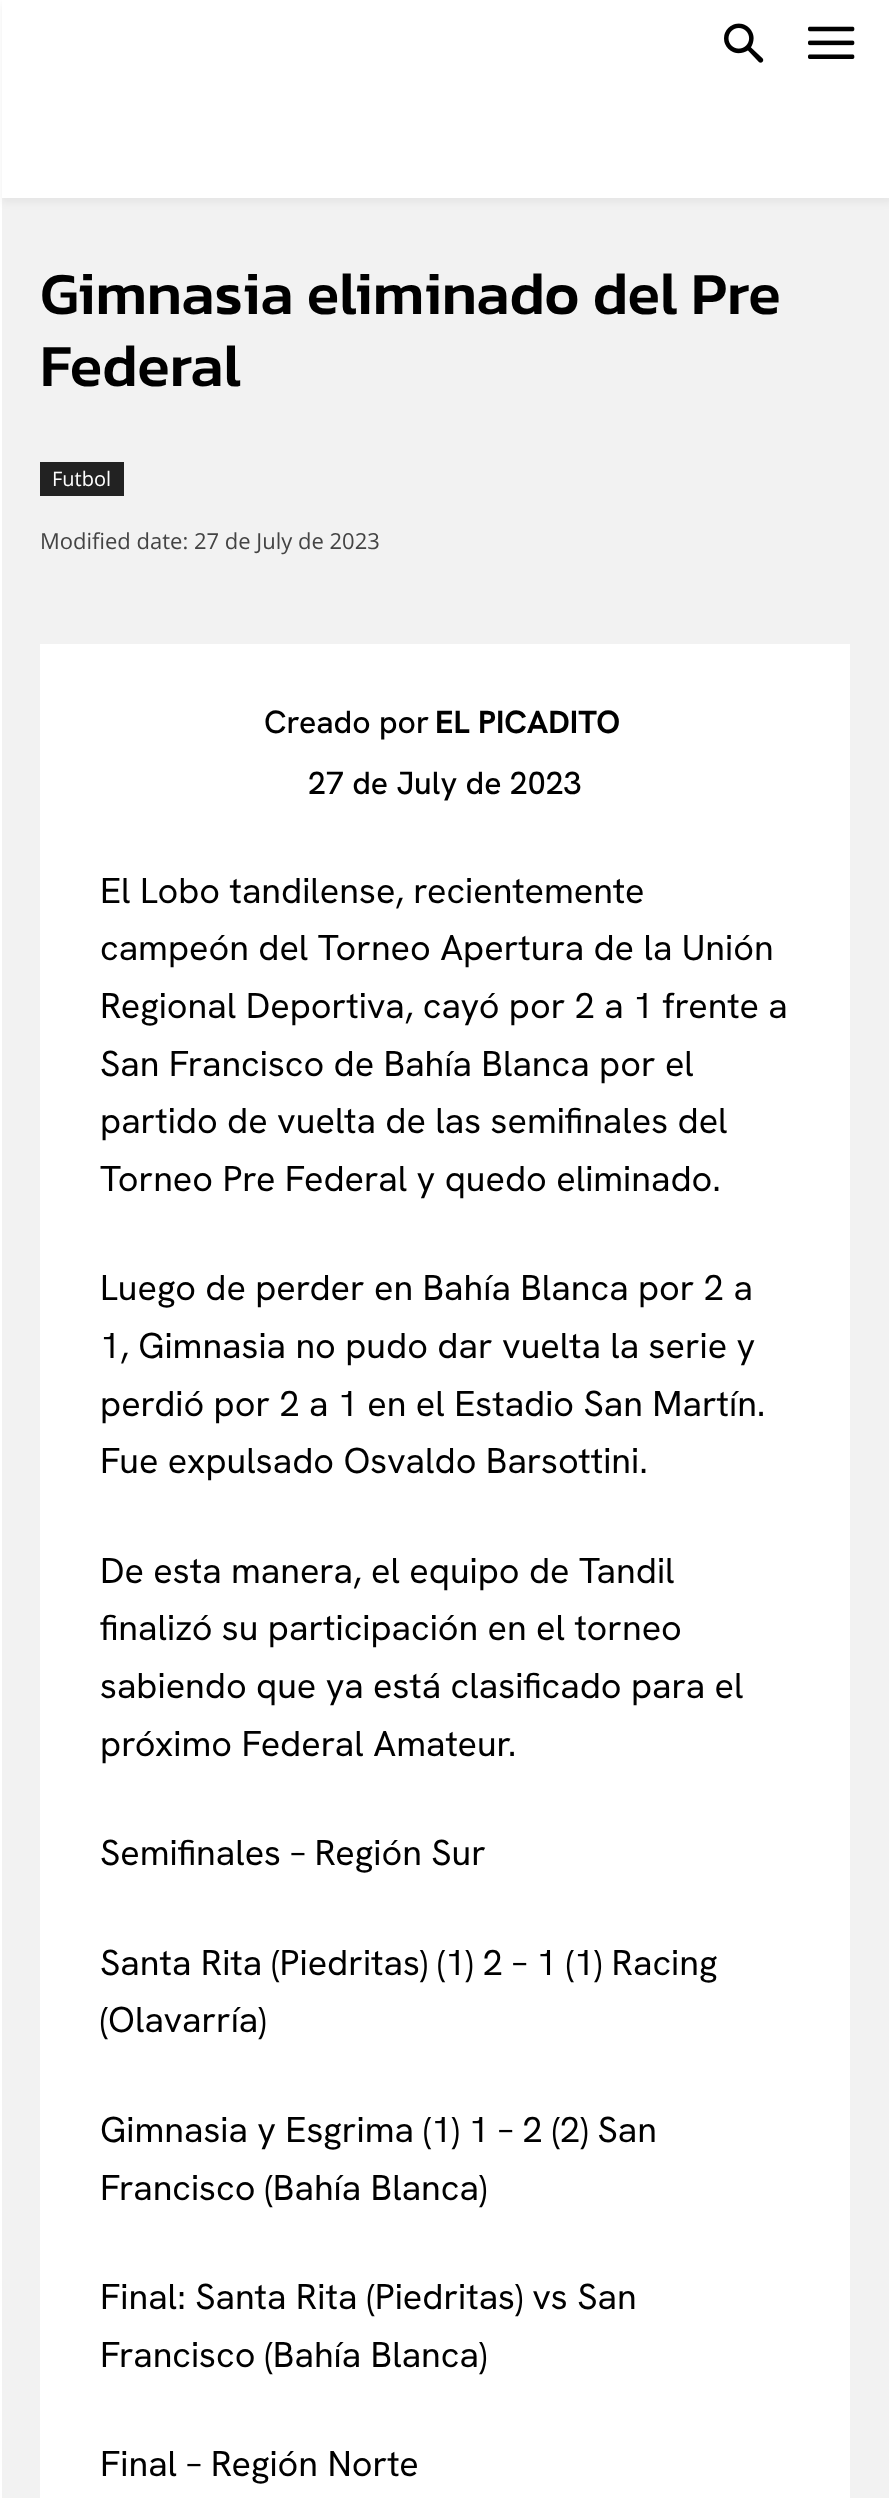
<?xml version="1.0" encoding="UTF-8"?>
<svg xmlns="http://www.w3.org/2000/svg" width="889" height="2498">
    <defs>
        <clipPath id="clip1"><path d="M 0 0 H 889 V 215 H 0 Z M 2 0 H 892 V 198 H 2 Z" clip-rule="evenodd"/></clipPath>
        <filter id="blur1" x="-50%" y="-200%" width="200%" height="500%"><feGaussianBlur stdDeviation="4"/></filter>
    </defs>
    <rect width="100%" height="100%" fill="#FFFFFF"/>
    <image x="724" y="23" width="40" height="40" href="img_01.png"/>
    <image x="808" y="26" width="47" height="33" href="img_02.png"/>
    <rect x="2" y="198" width="887" height="2300" fill="#F2F2F2"/>
    <g clip-path="url(#clip1)">
        <rect x="2" y="4" width="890" height="198" fill="#000000" fill-opacity="0.06" filter="url(#blur1)"/>
    </g>
    <text font-family="Kanit" font-size="60" font-weight="500" fill="#000000">
        <tspan x="40" y="314">Gimnasia eliminado del Pre</tspan>
        <tspan x="40" y="386">Federal</tspan>
    </text>
    <rect x="40" y="462" width="84" height="34" fill="#222222"/>
    <text x="52" y="486" font-family="Open Sans" font-size="20" fill="#FFFFFF">Futbol</text>
    <text x="40" y="549" font-family="Open Sans" font-size="22" fill="#444444">Modified date: 27 de July de 2023</text>
    <rect x="40" y="644" width="810" height="1854" fill="#FFFFFF"/>
    <text x="264" y="733" font-family="Hanken Grotesk" font-size="32" font-weight="500" fill="#000000">Creado por</text>
    <text x="435" y="733" font-family="Hanken Grotesk" font-size="32" font-weight="700" fill="#000000">EL PICADITO</text>
    <text x="308" y="794" font-family="Hanken Grotesk" font-size="32" font-weight="500" fill="#000000">27 de July de 2023</text>
    <text font-family="Hanken Grotesk" font-size="36" fill="#000000">
        <tspan x="100" y="903">El Lobo tandilense, recientemente</tspan>
        <tspan x="100" y="960">campeón del Torneo Apertura de la Unión</tspan>
        <tspan x="100" y="1018">Regional Deportiva, cayó por 2 a 1 frente a</tspan>
        <tspan x="100" y="1076">San Francisco de Bahía Blanca por el</tspan>
        <tspan x="100" y="1133">partido de vuelta de las semifinales del</tspan>
        <tspan x="100" y="1191">Torneo Pre Federal y quedo eliminado.</tspan>
    </text>
    <text font-family="Hanken Grotesk" font-size="36" fill="#000000">
        <tspan x="100" y="1300">Luego de perder en Bahía Blanca por 2 a</tspan>
        <tspan x="100" y="1358">1, Gimnasia no pudo dar vuelta la serie y</tspan>
        <tspan x="100" y="1416">perdió por 2 a 1 en el Estadio San Martín.</tspan>
        <tspan x="100" y="1473">Fue expulsado Osvaldo Barsottini.</tspan>
    </text>
    <text font-family="Hanken Grotesk" font-size="36" fill="#000000">
        <tspan x="100" y="1583">De esta manera, el equipo de Tandil</tspan>
        <tspan x="100" y="1640">finalizó su participación en el torneo</tspan>
        <tspan x="100" y="1698">sabiendo que ya está clasificado para el</tspan>
        <tspan x="100" y="1756">próximo Federal Amateur.</tspan>
    </text>
    <text x="100" y="1865" font-family="Hanken Grotesk" font-size="36" fill="#000000">Semifinales – Región Sur</text>
    <text font-family="Hanken Grotesk" font-size="36" fill="#000000">
        <tspan x="100" y="1975">Santa Rita (Piedritas) (1) 2 – 1 (1) Racing</tspan>
        <tspan x="100" y="2032">(Olavarría)</tspan>
    </text>
    <text font-family="Hanken Grotesk" font-size="36" fill="#000000">
        <tspan x="100" y="2142">Gimnasia y Esgrima (1) 1 – 2 (2) San</tspan>
        <tspan x="100" y="2200">Francisco (Bahía Blanca)</tspan>
    </text>
    <text font-family="Hanken Grotesk" font-size="36" fill="#000000">
        <tspan x="100" y="2309">Final: Santa Rita (Piedritas) vs San</tspan>
        <tspan x="100" y="2367">Francisco (Bahía Blanca)</tspan>
    </text>
    <text x="100" y="2476" font-family="Hanken Grotesk" font-size="36" fill="#000000">Final – Región Norte</text>
</svg>
